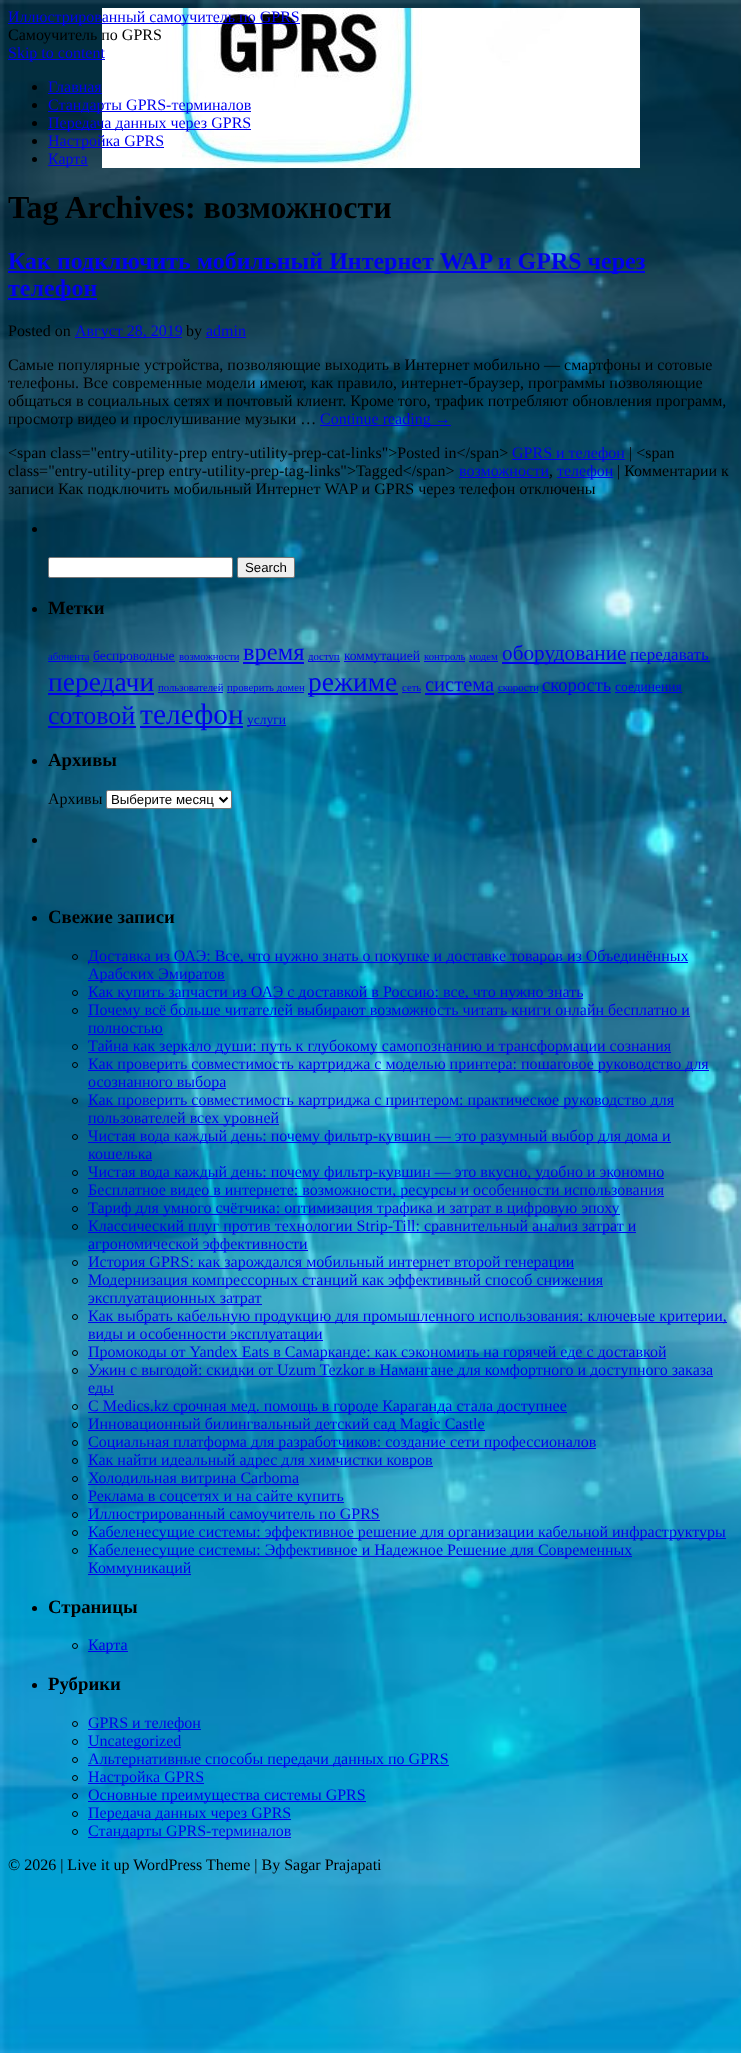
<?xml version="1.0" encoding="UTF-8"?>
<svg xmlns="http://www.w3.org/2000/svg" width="741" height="2053">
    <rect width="100%" height="100%" fill="#FFFFFF"/>
    <image x="0" y="0" width="741" height="2053" href="img_01.png"/>
    <image x="102" y="8" width="538" height="160" href="img_02.png"/>
    <rect x="8" y="23" width="292" height="1" fill="#0000EE"/>
    <text x="8" y="22" font-family="Liberation Serif" font-size="16" fill="#0000EE">Иллюстрированный самоучитель по GPRS</text>
    <text x="8" y="40" font-family="Liberation Serif" font-size="16" fill="#000000">Самоучитель по GPRS</text>
    <rect x="8" y="59" width="97" height="1" fill="#0000EE"/>
    <text x="8" y="58" font-family="Liberation Serif" font-size="16" fill="#0000EE">Skip to content</text>
    <circle cx="34.5" cy="87.5" r="2.5" fill="#000000"/>
    <text x="48" y="92" font-family="Liberation Serif" font-size="16" fill="#0000EE">Главная</text>
    <rect x="48" y="93" width="54" height="1" fill="#0000EE"/>
    <circle cx="34.5" cy="105.5" r="2.5" fill="#000000"/>
    <rect x="48" y="111" width="203" height="1" fill="#0000EE"/>
    <text x="48" y="110" font-family="Liberation Serif" font-size="16" fill="#0000EE">Стандарты GPRS-терминалов</text>
    <circle cx="34.5" cy="123.5" r="2.5" fill="#000000"/>
    <rect x="48" y="129" width="203" height="1" fill="#0000EE"/>
    <text x="48" y="128" font-family="Liberation Serif" font-size="16" fill="#0000EE">Передача данных через GPRS</text>
    <circle cx="34.5" cy="141.5" r="2.5" fill="#000000"/>
    <rect x="48" y="147" width="116" height="1" fill="#0000EE"/>
    <text x="48" y="146" font-family="Liberation Serif" font-size="16" fill="#0000EE">Настройка GPRS</text>
    <circle cx="34.5" cy="159.5" r="2.5" fill="#000000"/>
    <rect x="48" y="165" width="40" height="1" fill="#0000EE"/>
    <text x="48" y="164" font-family="Liberation Serif" font-size="16" fill="#0000EE">Карта</text>
    <text x="8" y="218" font-family="Liberation Serif" font-size="32" font-weight="700" fill="#000000">Tag Archives: возможности</text>
    <rect x="8" y="271" width="637" height="2" fill="#0000EE"/>
    <text x="8" y="269" font-family="Liberation Serif" font-size="24" font-weight="700" fill="#0000EE">Как подключить мобильный Интернет WAP и GPRS через</text>
    <rect x="8" y="298" width="89" height="2" fill="#0000EE"/>
    <text x="8" y="296" font-family="Liberation Serif" font-size="24" font-weight="700" fill="#0000EE">телефон</text>
    <text x="8" y="336" font-family="Liberation Serif" font-size="16" fill="#000000">Posted on</text>
    <rect x="75" y="337" width="107" height="1" fill="#0000EE"/>
    <text x="75" y="336" font-family="Liberation Serif" font-size="16" fill="#0000EE">Август 28, 2019</text>
    <text x="186" y="336" font-family="Liberation Serif" font-size="16" fill="#000000">by</text>
    <text x="206" y="336" font-family="Liberation Serif" font-size="16" fill="#0000EE">admin</text>
    <rect x="206" y="337" width="40" height="1" fill="#0000EE"/>
    <text font-family="Liberation Serif" font-size="16" fill="#000000">
        <tspan x="8" y="370">Самые популярные устройства, позволяющие выходить в Интернет мобильно — смартфоны и сотовые</tspan>
        <tspan x="8" y="388">телефоны. Все современные модели имеют, как правило, интернет-браузер, программы позволяющие</tspan>
        <tspan x="8" y="406">общаться в социальных сетях и почтовый клиент. Кроме того, трафик потребляют обновления программ,</tspan>
        <tspan x="8" y="424">просмотр видео и прослушивание музыки …</tspan>
    </text>
    <rect x="320" y="425" width="131" height="1" fill="#0000EE"/>
    <text x="320" y="424" font-family="Liberation Serif" font-size="16" fill="#0000EE">Continue reading →</text>
    <text x="8" y="458" font-family="Liberation Serif" font-size="16" fill="#000000">&lt;span class="entry-utility-prep entry-utility-prep-cat-links"&gt;Posted in&lt;/span&gt;</text>
    <rect x="512" y="459" width="113" height="1" fill="#0000EE"/>
    <text x="512" y="458" font-family="Liberation Serif" font-size="16" fill="#0000EE">GPRS и телефон</text>
    <text x="629" y="458" font-family="Liberation Serif" font-size="16" fill="#000000">| &lt;span</text>
    <text x="8" y="476" font-family="Liberation Serif" font-size="16" fill="#000000">class="entry-utility-prep entry-utility-prep-tag-links"&gt;Tagged&lt;/span&gt;</text>
    <text x="459" y="476" font-family="Liberation Serif" font-size="16" fill="#0000EE">возможности</text>
    <text x="549" y="476" font-family="Liberation Serif" font-size="16" fill="#000000">,</text>
    <rect x="459" y="477" width="90" height="1" fill="#0000EE"/>
    <rect x="557" y="477" width="56" height="1" fill="#0000EE"/>
    <text x="557" y="476" font-family="Liberation Serif" font-size="16" fill="#0000EE">телефон</text>
    <text x="617" y="476" font-family="Liberation Serif" font-size="16" fill="#000000">| Комментарии к</text>
    <text x="8" y="494" font-family="Liberation Serif" font-size="16" fill="#000000">записи Как подключить мобильный Интернет WAP и GPRS через телефон отключены</text>
    <circle cx="34.5" cy="529.5" r="2.5" fill="#000000"/>
    <rect x="48.5" y="557.5" width="184" height="20" rx="1.5" fill="#FFFFFF" stroke="#767676"/>
    <rect x="237.5" y="557.5" width="57" height="20" rx="1.5" fill="#EFEFEF" stroke="#767676"/>
    <text x="245" y="572" font-family="Liberation Sans" font-size="13.25" fill="#000000">Search</text>
    <circle cx="34.5" cy="609.5" r="2.5" fill="#000000"/>
    <text x="48" y="614" font-family="Liberation Serif" font-size="18.75" font-weight="700" fill="#000000">Метки</text>
    <text x="48" y="660" font-family="Liberation Serif" font-size="10.75" fill="#0000EE">абонента</text>
    <rect x="48" y="661" width="41" height="1" fill="#0000EE"/>
    <rect x="93" y="661" width="82" height="1" fill="#0000EE"/>
    <text x="93" y="660" font-family="Liberation Serif" font-size="13.5" fill="#0000EE">беспроводные</text>
    <text x="179" y="660" font-family="Liberation Serif" font-size="10.75" fill="#0000EE">возможности</text>
    <rect x="179" y="661" width="60" height="1" fill="#0000EE"/>
    <rect x="243" y="662" width="61" height="2" fill="#0000EE"/>
    <text x="243" y="660" font-family="Liberation Serif" font-size="24.5" fill="#0000EE">время</text>
    <rect x="308" y="661" width="32" height="1" fill="#0000EE"/>
    <text x="308" y="660" font-family="Liberation Serif" font-size="10.75" fill="#0000EE">доступ</text>
    <rect x="344" y="661" width="76" height="1" fill="#0000EE"/>
    <text x="344" y="660" font-family="Liberation Serif" font-size="13.5" fill="#0000EE">коммутацией</text>
    <rect x="424" y="661" width="41" height="1" fill="#0000EE"/>
    <text x="424" y="660" font-family="Liberation Serif" font-size="10.75" fill="#0000EE">контроль</text>
    <rect x="469" y="661" width="29" height="1" fill="#0000EE"/>
    <text x="469" y="660" font-family="Liberation Serif" font-size="10.75" fill="#0000EE">модем</text>
    <rect x="502" y="662" width="124" height="2" fill="#0000EE"/>
    <text x="502" y="660" font-family="Liberation Serif" font-size="21.25" fill="#0000EE">оборудование</text>
    <rect x="630" y="661" width="80" height="1" fill="#0000EE"/>
    <text x="630" y="660" font-family="Liberation Serif" font-size="17" fill="#0000EE">передавать</text>
    <rect x="48" y="693" width="106" height="2" fill="#0000EE"/>
    <text x="48" y="691" font-family="Liberation Serif" font-size="27.5" fill="#0000EE">передачи</text>
    <text x="158" y="691" font-family="Liberation Serif" font-size="10.75" fill="#0000EE">пользователей</text>
    <rect x="158" y="692" width="65" height="1" fill="#0000EE"/>
    <rect x="227" y="692" width="77" height="1" fill="#0000EE"/>
    <text x="227" y="691" font-family="Liberation Serif" font-size="10.75" fill="#0000EE">проверить домен</text>
    <rect x="308" y="693" width="90" height="2" fill="#0000EE"/>
    <text x="308" y="691" font-family="Liberation Serif" font-size="27.5" fill="#0000EE">режиме</text>
    <text x="402" y="691" font-family="Liberation Serif" font-size="10.75" fill="#0000EE">сеть</text>
    <rect x="402" y="692" width="19" height="1" fill="#0000EE"/>
    <text x="425" y="691" font-family="Liberation Serif" font-size="20.5" fill="#0000EE">система</text>
    <rect x="425" y="693" width="69" height="2" fill="#0000EE"/>
    <rect x="498" y="692" width="40" height="1" fill="#0000EE"/>
    <text x="498" y="691" font-family="Liberation Serif" font-size="10.75" fill="#0000EE">скорости</text>
    <rect x="542" y="692" width="69" height="1" fill="#0000EE"/>
    <text x="542" y="691" font-family="Liberation Serif" font-size="18.5" fill="#0000EE">скорость</text>
    <rect x="615" y="692" width="67" height="1" fill="#0000EE"/>
    <text x="615" y="691" font-family="Liberation Serif" font-size="13.5" fill="#0000EE">соединения</text>
    <text x="48" y="724" font-family="Liberation Serif" font-size="26" fill="#0000EE">сотовой</text>
    <rect x="48" y="726" width="88" height="2" fill="#0000EE"/>
    <rect x="140" y="726" width="103" height="2" fill="#0000EE"/>
    <text x="140" y="724" font-family="Liberation Serif" font-size="29.5" fill="#0000EE">телефон</text>
    <rect x="247" y="725" width="39" height="1" fill="#0000EE"/>
    <text x="247" y="724" font-family="Liberation Serif" font-size="13.5" fill="#0000EE">услуги</text>
    <circle cx="34.5" cy="761.5" r="2.5" fill="#000000"/>
    <text x="48" y="766" font-family="Liberation Serif" font-size="18.75" font-weight="700" fill="#000000">Архивы</text>
    <text x="48" y="804" font-family="Liberation Serif" font-size="16" fill="#000000">Архивы</text>
    <rect x="106.5" y="790.5" width="125" height="18" rx="1.5" fill="#FFFFFF" stroke="#767676"/>
    <path d="M 219.5 797.5 L 223.5 801.5 L 227.5 797.5" fill="none" stroke="#000000" stroke-width="2"/>
    <text x="111" y="804" font-family="Liberation Sans" font-size="13.25" fill="#000000">Выберите месяц</text>
    <circle cx="34.5" cy="840.5" r="2.5" fill="#000000"/>
    <circle cx="34.5" cy="918.5" r="2.5" fill="#000000"/>
    <text x="48" y="923" font-family="Liberation Serif" font-size="18.75" font-weight="700" fill="#000000">Свежие записи</text>
    <circle cx="75" cy="957" r="2.5" fill="none" stroke="#000000"/>
    <rect x="88" y="962" width="600" height="1" fill="#0000EE"/>
    <text x="88" y="961" font-family="Liberation Serif" font-size="16" fill="#0000EE">Доставка из ОАЭ: Все, что нужно знать о покупке и доставке товаров из Объединённых</text>
    <rect x="88" y="980" width="137" height="1" fill="#0000EE"/>
    <text x="88" y="979" font-family="Liberation Serif" font-size="16" fill="#0000EE">Арабских Эмиратов</text>
    <circle cx="75" cy="993" r="2.5" fill="none" stroke="#000000"/>
    <rect x="88" y="998" width="495" height="1" fill="#0000EE"/>
    <text x="88" y="997" font-family="Liberation Serif" font-size="16" fill="#0000EE">Как купить запчасти из ОАЭ с доставкой в Россию: все, что нужно знать</text>
    <circle cx="75" cy="1011" r="2.5" fill="none" stroke="#000000"/>
    <rect x="88" y="1016" width="602" height="1" fill="#0000EE"/>
    <text font-family="Liberation Serif" font-size="16" fill="#0000EE">
        <tspan x="88" y="1015">Почему всё больше читателей выбирают возможность читать книги онлайн бесплатно и</tspan>
        <tspan x="88" y="1033">полностью</tspan>
    </text>
    <rect x="88" y="1034" width="75" height="1" fill="#0000EE"/>
    <circle cx="75" cy="1047" r="2.5" fill="none" stroke="#000000"/>
    <rect x="88" y="1052" width="583" height="1" fill="#0000EE"/>
    <text x="88" y="1051" font-family="Liberation Serif" font-size="16" fill="#0000EE">Тайна как зеркало души: путь к глубокому самопознанию и трансформации сознания</text>
    <circle cx="75" cy="1065" r="2.5" fill="none" stroke="#000000"/>
    <rect x="88" y="1070" width="621" height="1" fill="#0000EE"/>
    <text x="88" y="1069" font-family="Liberation Serif" font-size="16" fill="#0000EE">Как проверить совместимость картриджа с моделью принтера: пошаговое руководство для</text>
    <rect x="88" y="1088" width="138" height="1" fill="#0000EE"/>
    <text x="88" y="1087" font-family="Liberation Serif" font-size="16" fill="#0000EE">осознанного выбора</text>
    <circle cx="75" cy="1101" r="2.5" fill="none" stroke="#000000"/>
    <rect x="88" y="1106" width="586" height="1" fill="#0000EE"/>
    <text x="88" y="1105" font-family="Liberation Serif" font-size="16" fill="#0000EE">Как проверить совместимость картриджа с принтером: практическое руководство для</text>
    <rect x="88" y="1124" width="191" height="1" fill="#0000EE"/>
    <text x="88" y="1123" font-family="Liberation Serif" font-size="16" fill="#0000EE">пользователей всех уровней</text>
    <circle cx="75" cy="1137" r="2.5" fill="none" stroke="#000000"/>
    <rect x="88" y="1142" width="583" height="1" fill="#0000EE"/>
    <text font-family="Liberation Serif" font-size="16" fill="#0000EE">
        <tspan x="88" y="1141">Чистая вода каждый день: почему фильтр-кувшин — это разумный выбор для дома и</tspan>
        <tspan x="88" y="1159">кошелька</tspan>
    </text>
    <rect x="88" y="1160" width="64" height="1" fill="#0000EE"/>
    <circle cx="75" cy="1173" r="2.5" fill="none" stroke="#000000"/>
    <rect x="88" y="1178" width="576" height="1" fill="#0000EE"/>
    <text x="88" y="1177" font-family="Liberation Serif" font-size="16" fill="#0000EE">Чистая вода каждый день: почему фильтр-кувшин — это вкусно, удобно и экономно</text>
    <circle cx="75" cy="1191" r="2.5" fill="none" stroke="#000000"/>
    <rect x="88" y="1196" width="576" height="1" fill="#0000EE"/>
    <text x="88" y="1195" font-family="Liberation Serif" font-size="16" fill="#0000EE">Бесплатное видео в интернете: возможности, ресурсы и особенности использования</text>
    <circle cx="75" cy="1209" r="2.5" fill="none" stroke="#000000"/>
    <rect x="88" y="1214" width="532" height="1" fill="#0000EE"/>
    <text x="88" y="1213" font-family="Liberation Serif" font-size="16" fill="#0000EE">Тариф для умного счётчика: оптимизация трафика и затрат в цифровую эпоху</text>
    <circle cx="75" cy="1227" r="2.5" fill="none" stroke="#000000"/>
    <rect x="88" y="1232" width="548" height="1" fill="#0000EE"/>
    <text x="88" y="1231" font-family="Liberation Serif" font-size="16" fill="#0000EE">Классический плуг против технологии Strip-Till: сравнительный анализ затрат и</text>
    <rect x="88" y="1250" width="220" height="1" fill="#0000EE"/>
    <text x="88" y="1249" font-family="Liberation Serif" font-size="16" fill="#0000EE">агрономической эффективности</text>
    <circle cx="75" cy="1263" r="2.5" fill="none" stroke="#000000"/>
    <rect x="88" y="1268" width="486" height="1" fill="#0000EE"/>
    <text x="88" y="1267" font-family="Liberation Serif" font-size="16" fill="#0000EE">История GPRS: как зарождался мобильный интернет второй генерации</text>
    <circle cx="75" cy="1281" r="2.5" fill="none" stroke="#000000"/>
    <rect x="88" y="1286" width="515" height="1" fill="#0000EE"/>
    <text x="88" y="1285" font-family="Liberation Serif" font-size="16" fill="#0000EE">Модернизация компрессорных станций как эффективный способ снижения</text>
    <rect x="88" y="1304" width="174" height="1" fill="#0000EE"/>
    <text x="88" y="1303" font-family="Liberation Serif" font-size="16" fill="#0000EE">эксплуатационных затрат</text>
    <circle cx="75" cy="1317" r="2.5" fill="none" stroke="#000000"/>
    <rect x="88" y="1322" width="639" height="1" fill="#0000EE"/>
    <text x="88" y="1321" font-family="Liberation Serif" font-size="16" fill="#0000EE">Как выбрать кабельную продукцию для промышленного использования: ключевые критерии,</text>
    <rect x="88" y="1340" width="235" height="1" fill="#0000EE"/>
    <text x="88" y="1339" font-family="Liberation Serif" font-size="16" fill="#0000EE">виды и особенности эксплуатации</text>
    <circle cx="75" cy="1353" r="2.5" fill="none" stroke="#000000"/>
    <rect x="88" y="1358" width="578" height="1" fill="#0000EE"/>
    <text x="88" y="1357" font-family="Liberation Serif" font-size="16" fill="#0000EE">Промокоды от Yandex Eats в Самарканде: как сэкономить на горячей еде с доставкой</text>
    <circle cx="75" cy="1371" r="2.5" fill="none" stroke="#000000"/>
    <rect x="88" y="1376" width="625" height="1" fill="#0000EE"/>
    <text x="88" y="1375" font-family="Liberation Serif" font-size="16" fill="#0000EE">Ужин с выгодой: скидки от Uzum Tezkor в Намангане для комфортного и доступного заказа</text>
    <rect x="88" y="1394" width="26" height="1" fill="#0000EE"/>
    <text x="88" y="1393" font-family="Liberation Serif" font-size="16" fill="#0000EE">еды</text>
    <circle cx="75" cy="1407" r="2.5" fill="none" stroke="#000000"/>
    <rect x="88" y="1412" width="479" height="1" fill="#0000EE"/>
    <text x="88" y="1411" font-family="Liberation Serif" font-size="16" fill="#0000EE">С Medics.kz срочная мед. помощь в городе Караганда стала доступнее</text>
    <circle cx="75" cy="1425" r="2.5" fill="none" stroke="#000000"/>
    <rect x="88" y="1430" width="397" height="1" fill="#0000EE"/>
    <text x="88" y="1429" font-family="Liberation Serif" font-size="16" fill="#0000EE">Инновационный билингвальный детский сад Magic Castle</text>
    <circle cx="75" cy="1443" r="2.5" fill="none" stroke="#000000"/>
    <rect x="88" y="1448" width="508" height="1" fill="#0000EE"/>
    <text x="88" y="1447" font-family="Liberation Serif" font-size="16" fill="#0000EE">Социальная платформа для разработчиков: создание сети профессионалов</text>
    <circle cx="75" cy="1461" r="2.5" fill="none" stroke="#000000"/>
    <rect x="88" y="1466" width="345" height="1" fill="#0000EE"/>
    <text x="88" y="1465" font-family="Liberation Serif" font-size="16" fill="#0000EE">Как найти идеальный адрес для химчистки ковров</text>
    <circle cx="75" cy="1479" r="2.5" fill="none" stroke="#000000"/>
    <rect x="88" y="1484" width="211" height="1" fill="#0000EE"/>
    <text x="88" y="1483" font-family="Liberation Serif" font-size="16" fill="#0000EE">Холодильная витрина Carboma</text>
    <circle cx="75" cy="1497" r="2.5" fill="none" stroke="#000000"/>
    <rect x="88" y="1502" width="256" height="1" fill="#0000EE"/>
    <text x="88" y="1501" font-family="Liberation Serif" font-size="16" fill="#0000EE">Реклама в соцсетях и на сайте купить</text>
    <circle cx="75" cy="1515" r="2.5" fill="none" stroke="#000000"/>
    <rect x="88" y="1520" width="292" height="1" fill="#0000EE"/>
    <text x="88" y="1519" font-family="Liberation Serif" font-size="16" fill="#0000EE">Иллюстрированный самоучитель по GPRS</text>
    <circle cx="75" cy="1533" r="2.5" fill="none" stroke="#000000"/>
    <rect x="88" y="1538" width="638" height="1" fill="#0000EE"/>
    <text x="88" y="1537" font-family="Liberation Serif" font-size="16" fill="#0000EE">Кабеленесущие системы: эффективное решение для организации кабельной инфраструктуры</text>
    <circle cx="75" cy="1551" r="2.5" fill="none" stroke="#000000"/>
    <rect x="88" y="1556" width="544" height="1" fill="#0000EE"/>
    <text x="88" y="1555" font-family="Liberation Serif" font-size="16" fill="#0000EE">Кабеленесущие системы: Эффективное и Надежное Решение для Современных</text>
    <rect x="88" y="1574" width="103" height="1" fill="#0000EE"/>
    <text x="88" y="1573" font-family="Liberation Serif" font-size="16" fill="#0000EE">Коммуникаций</text>
    <circle cx="34.5" cy="1608.5" r="2.5" fill="#000000"/>
    <text x="48" y="1613" font-family="Liberation Serif" font-size="18.75" font-weight="700" fill="#000000">Страницы</text>
    <circle cx="75" cy="1646" r="2.5" fill="none" stroke="#000000"/>
    <rect x="88" y="1651" width="40" height="1" fill="#0000EE"/>
    <text x="88" y="1650" font-family="Liberation Serif" font-size="16" fill="#0000EE">Карта</text>
    <circle cx="34.5" cy="1685.5" r="2.5" fill="#000000"/>
    <text x="48" y="1690" font-family="Liberation Serif" font-size="18.75" font-weight="700" fill="#000000">Рубрики</text>
    <circle cx="75" cy="1724" r="2.5" fill="none" stroke="#000000"/>
    <rect x="88" y="1729" width="113" height="1" fill="#0000EE"/>
    <text x="88" y="1728" font-family="Liberation Serif" font-size="16" fill="#0000EE">GPRS и телефон</text>
    <circle cx="75" cy="1742" r="2.5" fill="none" stroke="#000000"/>
    <rect x="88" y="1747" width="93" height="1" fill="#0000EE"/>
    <text x="88" y="1746" font-family="Liberation Serif" font-size="16" fill="#0000EE">Uncategorized</text>
    <circle cx="75" cy="1760" r="2.5" fill="none" stroke="#000000"/>
    <rect x="88" y="1765" width="361" height="1" fill="#0000EE"/>
    <text x="88" y="1764" font-family="Liberation Serif" font-size="16" fill="#0000EE">Альтернативные способы передачи данных по GPRS</text>
    <circle cx="75" cy="1778" r="2.5" fill="none" stroke="#000000"/>
    <rect x="88" y="1783" width="116" height="1" fill="#0000EE"/>
    <text x="88" y="1782" font-family="Liberation Serif" font-size="16" fill="#0000EE">Настройка GPRS</text>
    <circle cx="75" cy="1796" r="2.5" fill="none" stroke="#000000"/>
    <rect x="88" y="1801" width="278" height="1" fill="#0000EE"/>
    <text x="88" y="1800" font-family="Liberation Serif" font-size="16" fill="#0000EE">Основные преимущества системы GPRS</text>
    <circle cx="75" cy="1814" r="2.5" fill="none" stroke="#000000"/>
    <rect x="88" y="1819" width="203" height="1" fill="#0000EE"/>
    <text x="88" y="1818" font-family="Liberation Serif" font-size="16" fill="#0000EE">Передача данных через GPRS</text>
    <circle cx="75" cy="1832" r="2.5" fill="none" stroke="#000000"/>
    <rect x="88" y="1837" width="203" height="1" fill="#0000EE"/>
    <text x="88" y="1836" font-family="Liberation Serif" font-size="16" fill="#0000EE">Стандарты GPRS-терминалов</text>
    <text x="8" y="1870" font-family="Liberation Serif" font-size="16" fill="#000000">© 2026 | Live it up WordPress Theme | By Sagar Prajapati</text>
</svg>
